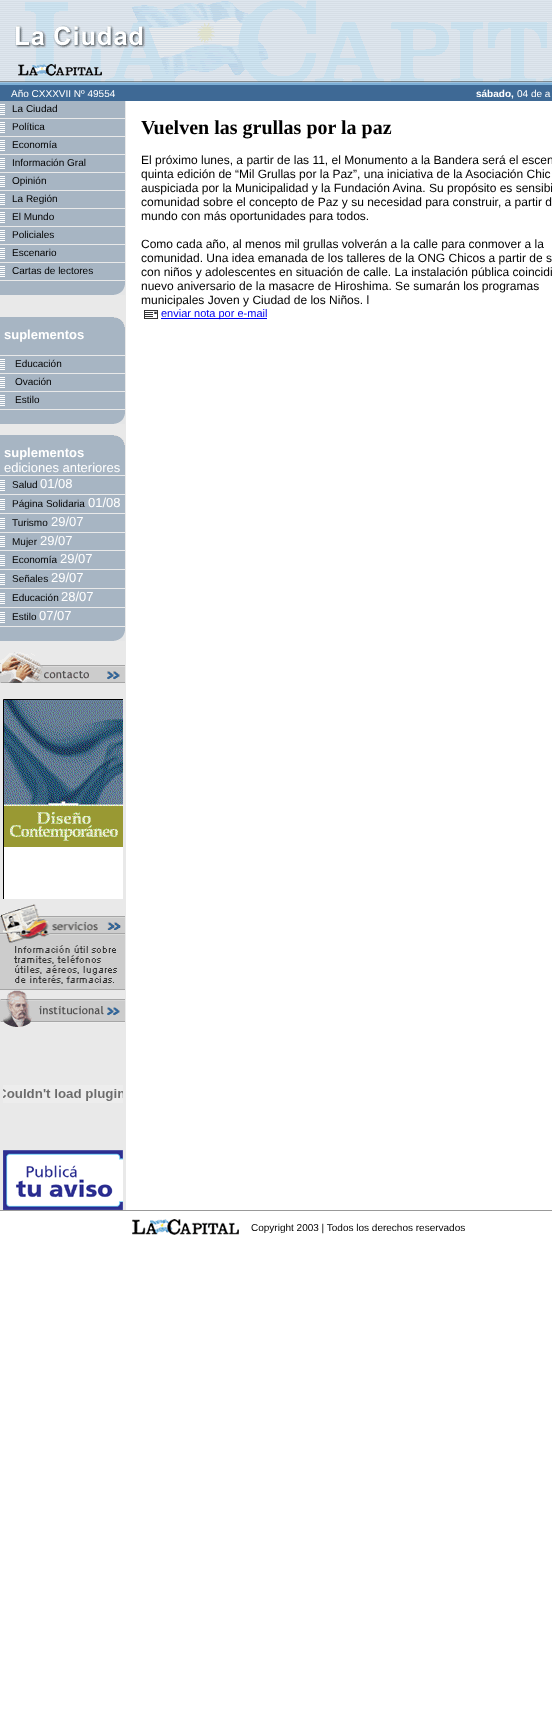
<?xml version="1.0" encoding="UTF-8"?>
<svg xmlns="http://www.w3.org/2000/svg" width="552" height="1727">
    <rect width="100%" height="100%" fill="#FFFFFF"/>
    <image x="0" y="0" width="552" height="85" href="img_01.png"/>
    <rect x="0" y="101" width="126" height="1109" fill="#E9E9E9"/>
    <rect x="0" y="85" width="552" height="16" fill="#3E6995"/>
    <text x="11" y="97" font-family="Liberation Sans" font-size="10" fill="#FFFFFF">Año CXXXVII Nº 49554</text>
    <rect x="0" y="101" width="125" height="194" fill="#A7B5C3"/>
    <image x="0" y="104" width="5" height="11" href="img_02.png"/>
    <text x="12" y="112" font-family="Liberation Sans" font-size="10" fill="#000000">La Ciudad</text>
    <rect x="0" y="118" width="125" height="1" fill="#E9E9E9"/>
    <image x="0" y="122" width="5" height="11" href="img_02.png"/>
    <text x="12" y="130" font-family="Liberation Sans" font-size="10" fill="#000000">Política</text>
    <rect x="0" y="136" width="125" height="1" fill="#E9E9E9"/>
    <image x="0" y="140" width="5" height="11" href="img_02.png"/>
    <text x="12" y="148" font-family="Liberation Sans" font-size="10" fill="#000000">Economía</text>
    <rect x="0" y="154" width="125" height="1" fill="#E9E9E9"/>
    <image x="0" y="158" width="5" height="11" href="img_02.png"/>
    <text x="12" y="166" font-family="Liberation Sans" font-size="10" fill="#000000">Información Gral</text>
    <rect x="0" y="172" width="125" height="1" fill="#E9E9E9"/>
    <image x="0" y="176" width="5" height="11" href="img_02.png"/>
    <text x="12" y="184" font-family="Liberation Sans" font-size="10" fill="#000000">Opinión</text>
    <rect x="0" y="190" width="125" height="1" fill="#E9E9E9"/>
    <image x="0" y="194" width="5" height="11" href="img_02.png"/>
    <text x="12" y="202" font-family="Liberation Sans" font-size="10" fill="#000000">La Región</text>
    <rect x="0" y="208" width="125" height="1" fill="#E9E9E9"/>
    <image x="0" y="212" width="5" height="11" href="img_02.png"/>
    <text x="12" y="220" font-family="Liberation Sans" font-size="10" fill="#000000">El Mundo</text>
    <rect x="0" y="226" width="125" height="1" fill="#E9E9E9"/>
    <image x="0" y="230" width="5" height="11" href="img_02.png"/>
    <text x="12" y="238" font-family="Liberation Sans" font-size="10" fill="#000000">Policiales</text>
    <rect x="0" y="244" width="125" height="1" fill="#E9E9E9"/>
    <image x="0" y="248" width="5" height="11" href="img_02.png"/>
    <text x="12" y="256" font-family="Liberation Sans" font-size="10" fill="#000000">Escenario</text>
    <rect x="0" y="262" width="125" height="1" fill="#E9E9E9"/>
    <image x="0" y="266" width="5" height="11" href="img_02.png"/>
    <text x="12" y="274" font-family="Liberation Sans" font-size="10" fill="#000000">Cartas de lectores</text>
    <rect x="0" y="280" width="125" height="1" fill="#E9E9E9"/>
    <image x="114" y="285" width="11" height="10" href="img_03.png"/>
    <rect x="0" y="317" width="125" height="107" fill="#A7B5C3"/>
    <image x="114" y="317" width="11" height="10" href="img_04.png"/>
    <text x="4" y="339" font-family="Liberation Sans" font-size="13" font-weight="700" fill="#FFFFFF">suplementos</text>
    <rect x="0" y="355" width="125" height="1" fill="#E9E9E9"/>
    <image x="0" y="359" width="5" height="11" href="img_02.png"/>
    <text x="15" y="367" font-family="Liberation Sans" font-size="10" fill="#000000">Educación</text>
    <rect x="0" y="373" width="125" height="1" fill="#E9E9E9"/>
    <image x="0" y="377" width="5" height="11" href="img_02.png"/>
    <text x="15" y="385" font-family="Liberation Sans" font-size="10" fill="#000000">Ovación</text>
    <rect x="0" y="391" width="125" height="1" fill="#E9E9E9"/>
    <image x="0" y="395" width="5" height="11" href="img_02.png"/>
    <text x="15" y="403" font-family="Liberation Sans" font-size="10" fill="#000000">Estilo</text>
    <rect x="0" y="409" width="125" height="1" fill="#E9E9E9"/>
    <image x="114" y="414" width="11" height="10" href="img_03.png"/>
    <rect x="0" y="435" width="125" height="206" fill="#A7B5C3"/>
    <image x="114" y="435" width="11" height="10" href="img_04.png"/>
    <text x="4" y="457" font-family="Liberation Sans" font-size="13" font-weight="700" fill="#FFFFFF">suplementos</text>
    <text x="4" y="472" font-family="Liberation Sans" font-size="13" fill="#FFFFFF">ediciones anteriores</text>
    <rect x="0" y="475" width="125" height="1" fill="#E9E9E9"/>
    <image x="0" y="480" width="5" height="11" href="img_02.png"/>
    <text x="12" y="488" font-family="Liberation Sans" font-size="10" fill="#000000">Salud</text>
    <text x="40" y="488" font-family="Liberation Sans" font-size="13" fill="#FFFFFF">01/08</text>
    <rect x="0" y="494" width="125" height="1" fill="#E9E9E9"/>
    <image x="0" y="499" width="5" height="11" href="img_02.png"/>
    <text x="12" y="507" font-family="Liberation Sans" font-size="10" fill="#000000">Página Solidaria</text>
    <text x="88" y="507" font-family="Liberation Sans" font-size="13" fill="#FFFFFF">01/08</text>
    <rect x="0" y="513" width="125" height="1" fill="#E9E9E9"/>
    <image x="0" y="518" width="5" height="11" href="img_02.png"/>
    <text x="12" y="526" font-family="Liberation Sans" font-size="10" fill="#000000">Turismo</text>
    <text x="51" y="526" font-family="Liberation Sans" font-size="13" fill="#FFFFFF">29/07</text>
    <rect x="0" y="532" width="125" height="1" fill="#E9E9E9"/>
    <image x="0" y="536" width="5" height="11" href="img_02.png"/>
    <text x="12" y="545" font-family="Liberation Sans" font-size="10" fill="#000000">Mujer</text>
    <text x="40" y="545" font-family="Liberation Sans" font-size="13" fill="#FFFFFF">29/07</text>
    <rect x="0" y="550" width="125" height="1" fill="#E9E9E9"/>
    <image x="0" y="555" width="5" height="11" href="img_02.png"/>
    <text x="12" y="563" font-family="Liberation Sans" font-size="10" fill="#000000">Economía</text>
    <text x="60" y="563" font-family="Liberation Sans" font-size="13" fill="#FFFFFF">29/07</text>
    <rect x="0" y="569" width="125" height="1" fill="#E9E9E9"/>
    <image x="0" y="574" width="5" height="11" href="img_02.png"/>
    <text x="12" y="582" font-family="Liberation Sans" font-size="10" fill="#000000">Señales</text>
    <text x="51" y="582" font-family="Liberation Sans" font-size="13" fill="#FFFFFF">29/07</text>
    <rect x="0" y="588" width="125" height="1" fill="#E9E9E9"/>
    <image x="0" y="593" width="5" height="11" href="img_02.png"/>
    <text x="12" y="601" font-family="Liberation Sans" font-size="10" fill="#000000">Educación</text>
    <text x="61" y="601" font-family="Liberation Sans" font-size="13" fill="#FFFFFF">28/07</text>
    <rect x="0" y="607" width="125" height="1" fill="#E9E9E9"/>
    <image x="0" y="612" width="5" height="11" href="img_02.png"/>
    <text x="12" y="620" font-family="Liberation Sans" font-size="10" fill="#000000">Estilo</text>
    <text x="39" y="620" font-family="Liberation Sans" font-size="13" fill="#FFFFFF">07/07</text>
    <rect x="0" y="626" width="125" height="1" fill="#E9E9E9"/>
    <image x="114" y="631" width="11" height="10" href="img_03.png"/>
    <image x="0" y="652" width="125" height="31" href="img_05.png"/>
    <image x="3" y="699" width="120" height="200" href="img_06.png"/>
    <image x="0" y="904" width="125" height="86" href="img_07.png"/>
    <image x="0" y="990" width="125" height="37" href="img_08.png"/>
    <image x="3" y="1085" width="120" height="18" href="img_09.png"/>
    <image x="3" y="1150" width="120" height="60" href="img_10.png"/>
    <text x="476" y="97" font-family="Liberation Sans" font-size="10" font-weight="700" fill="#FFFFFF">sábado,</text>
    <text x="517" y="97" font-family="Liberation Sans" font-size="10" fill="#FFFFFF">04 de a</text>
    <text x="141" y="134" font-family="Liberation Serif" font-size="20" font-weight="700" fill="#000000">Vuelven las grullas por la paz</text>
    <text font-family="Liberation Sans" font-size="12" fill="#000000">
        <tspan x="141" y="164">El próximo lunes, a partir de las 11, el Monumento a la Bandera será el escen</tspan>
        <tspan x="141" y="178">quinta edición de “Mil Grullas por la Paz”, una iniciativa de la Asociación Chic</tspan>
        <tspan x="141" y="192">auspiciada por la Municipalidad y la Fundación Avina. Su propósito es sensibi</tspan>
        <tspan x="141" y="206">comunidad sobre el concepto de Paz y su necesidad para construir, a partir d</tspan>
        <tspan x="141" y="220">mundo con más oportunidades para todos.</tspan>
    </text>
    <text font-family="Liberation Sans" font-size="12" fill="#000000">
        <tspan x="141" y="248">Como cada año, al menos mil grullas volverán a la calle para conmover a la</tspan>
        <tspan x="141" y="262">comunidad. Una idea emanada de los talleres de la ONG Chicos a partir de s</tspan>
        <tspan x="141" y="276">con niños y adolescentes en situación de calle. La instalación pública coincidi</tspan>
        <tspan x="141" y="290">nuevo aniversario de la masacre de Hiroshima. Se sumarán los programas</tspan>
        <tspan x="141" y="304">municipales Joven y Ciudad de los Niños. l</tspan>
    </text>
    <image x="144" y="310" width="14" height="9" href="img_11.png"/>
    <rect x="161" y="318" width="106" height="1" fill="#0000EE"/>
    <text x="161" y="317" font-family="Liberation Sans" font-size="11" fill="#0000EE">enviar nota por e-mail</text>
    <rect x="0" y="1210" width="552" height="1" fill="#999999"/>
    <image x="132" y="1219" width="107" height="16" href="img_12.png"/>
    <text x="251" y="1231" font-family="Liberation Sans" font-size="10" fill="#000000">Copyright 2003 | Todos los derechos reservados</text>
</svg>
